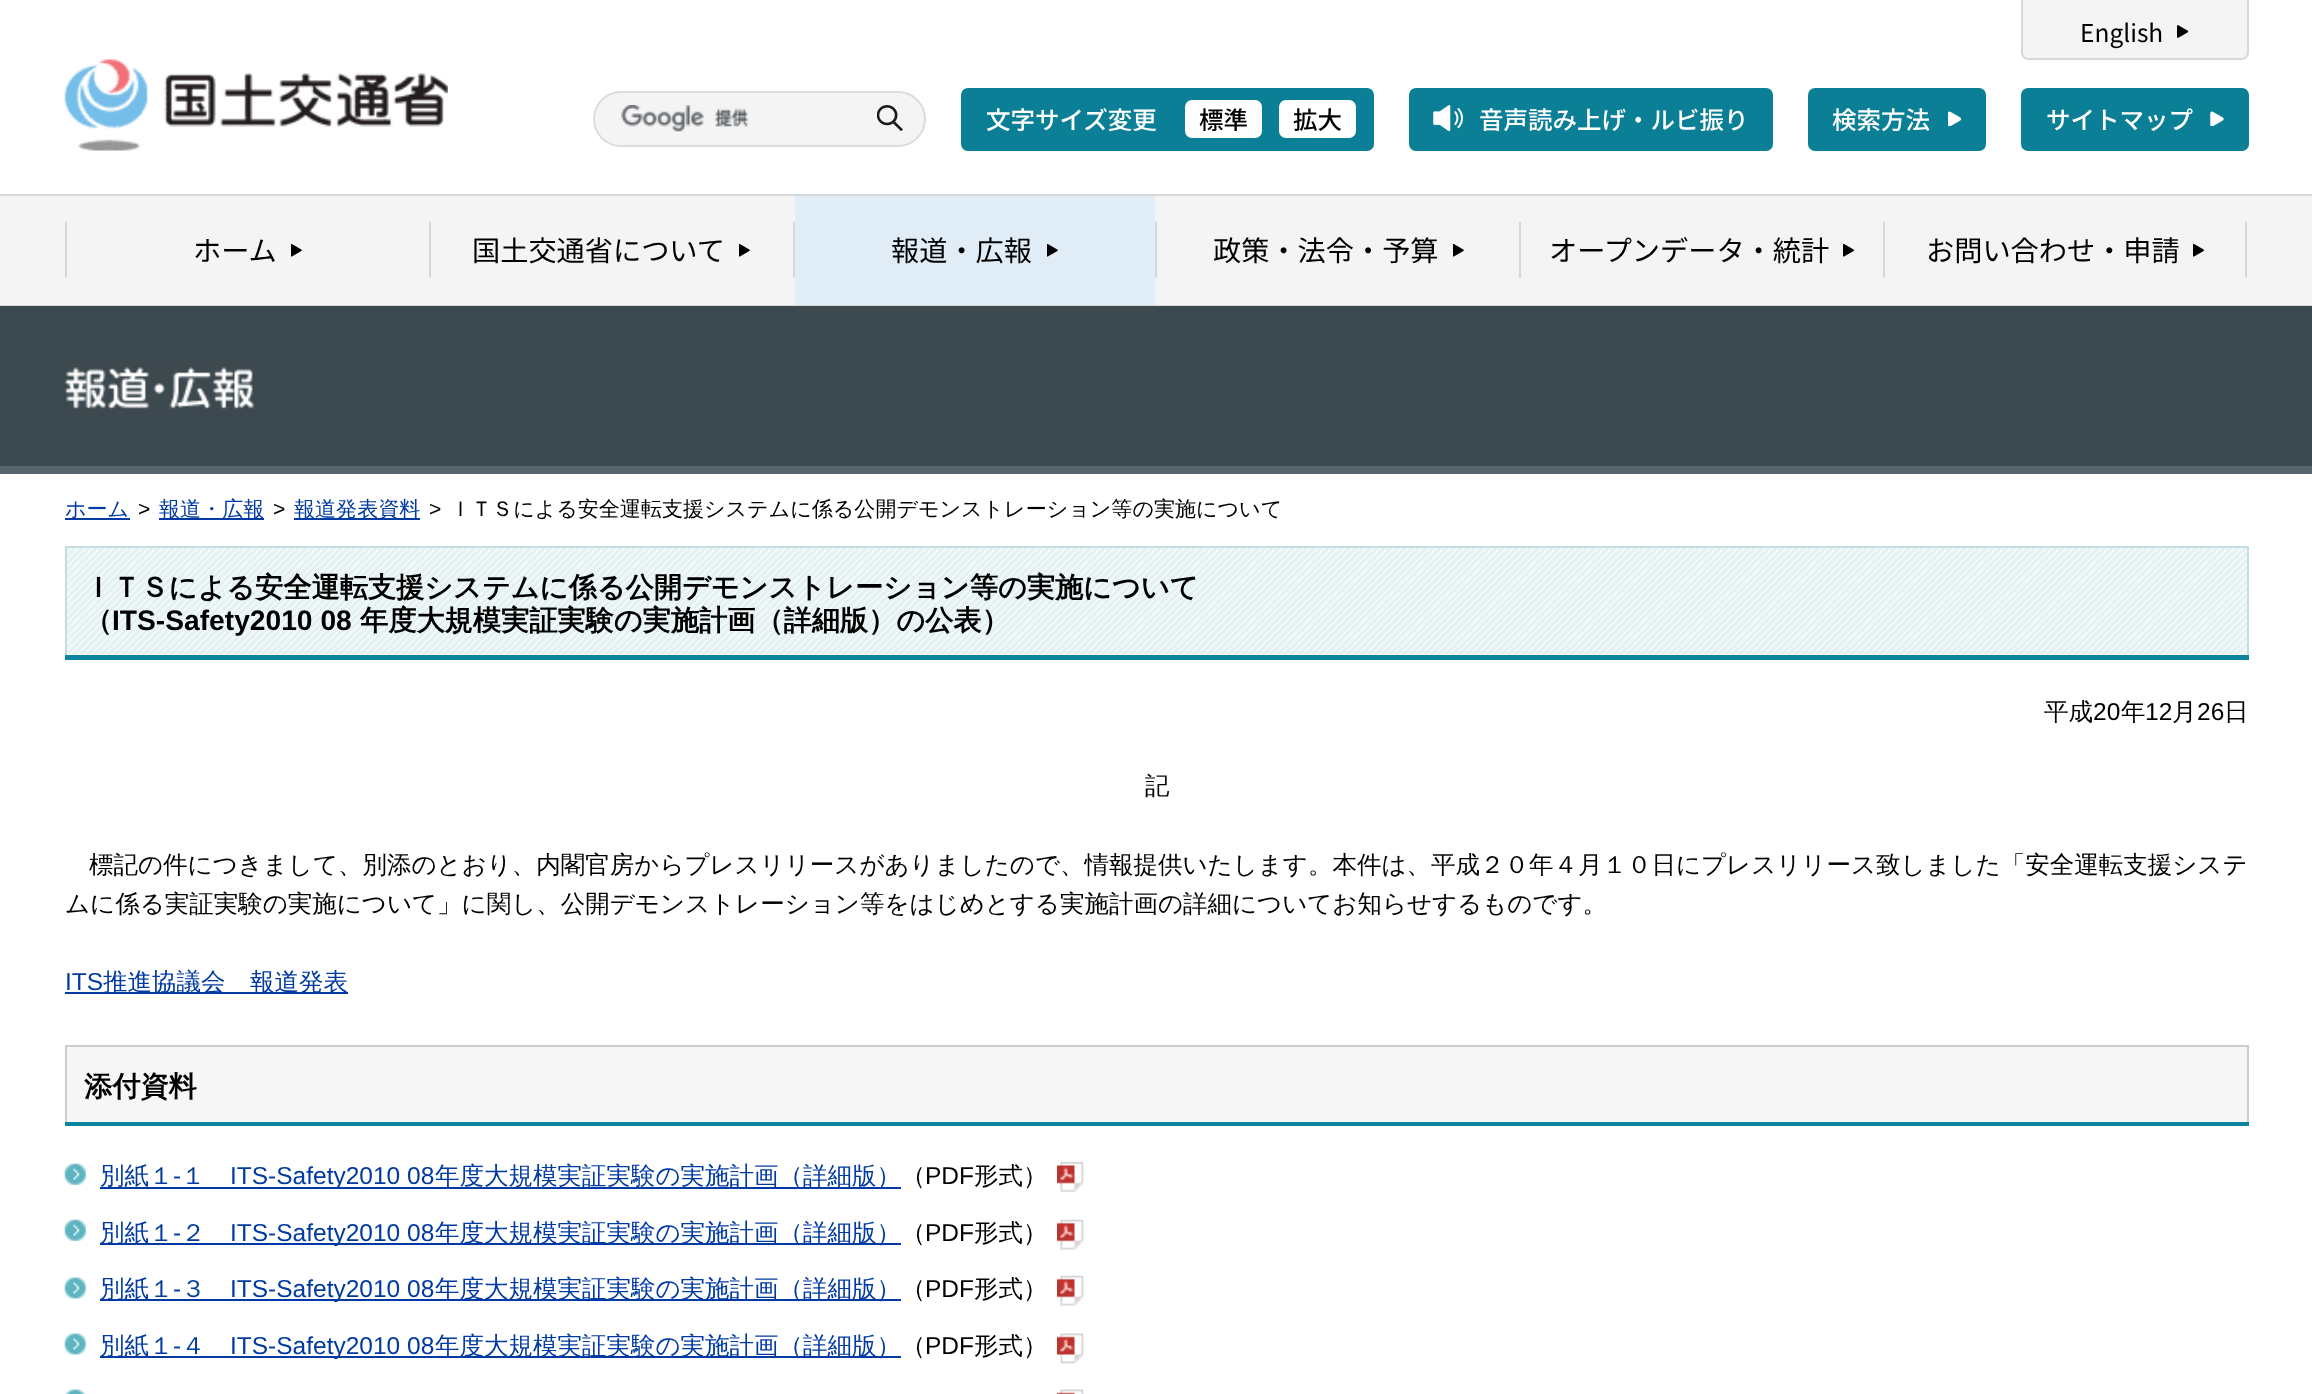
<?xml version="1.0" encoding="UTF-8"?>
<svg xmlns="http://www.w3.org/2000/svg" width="2312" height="1394">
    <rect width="100%" height="100%" fill="#FFFFFF"/>
    <image x="64" y="59" width="384" height="92" href="img_01.png"/>
    <path d="M 2021 0 H 2249 V 53 C 2249 57 2246 60 2242 60 H 2028 C 2024 60 2021 57 2021 53 Z" fill="#F4F4F4"/>
    <path d="M 2021 0 H 2249 V 52 C 2249 56 2246 60 2242 60 H 2028 C 2024 60 2021 56 2021 52 Z M 2023 0 H 2247 V 52 C 2247 55 2245 58 2242 58 H 2028 C 2025 58 2023 55 2023 52 Z" fill="#D8D8D8" fill-rule="evenodd"/>
    <text x="2080" y="42" font-family="Noto Sans JP" font-size="24.5" fill="#000000">English</text>
    <image x="2177" y="25" width="12" height="13" href="img_02.png"/>
    <rect x="594" y="92" width="331" height="54" rx="27" fill="#F4F4F4" stroke="#DCDCDC" stroke-width="2"/>
    <image x="621" y="105" width="128" height="27" href="img_03.png"/>
    <image x="877" y="105" width="26" height="26" href="img_04.png"/>
    <rect x="961" y="88" width="413" height="63" rx="7" fill="#0B7F96"/>
    <text x="986" y="129" font-family="Noto Sans JP" font-size="24.5" font-weight="500" fill="#FFFFFF">文字サイズ変更</text>
    <rect x="1185" y="100" width="77" height="38" rx="7" fill="#FFFFFF"/>
    <text x="1199" y="129" font-family="Noto Sans JP" font-size="24.5" font-weight="500" fill="#000000">標準</text>
    <rect x="1279" y="100" width="77" height="38" rx="7" fill="#FFFFFF"/>
    <text x="1293" y="129" font-family="Noto Sans JP" font-size="24.5" font-weight="500" fill="#000000">拡大</text>
    <rect x="1409" y="88" width="364" height="63" rx="7" fill="#0B7F96"/>
    <image x="1433" y="105" width="30" height="26" href="img_05.png"/>
    <text x="1479" y="129" font-family="Noto Sans JP" font-size="24.5" font-weight="500" fill="#FFFFFF">音声読み上げ・ルビ振り</text>
    <rect x="1808" y="88" width="178" height="63" rx="7" fill="#0B7F96"/>
    <text x="1832" y="129" font-family="Noto Sans JP" font-size="24.5" font-weight="500" fill="#FFFFFF">検索方法</text>
    <image x="1948" y="111" width="14" height="15" href="img_06.png"/>
    <rect x="2021" y="88" width="228" height="63" rx="7" fill="#0B7F96"/>
    <text x="2046" y="129" font-family="Noto Sans JP" font-size="24.5" font-weight="500" fill="#FFFFFF">サイトマップ</text>
    <image x="2210" y="111" width="14" height="15" href="img_07.png"/>
    <rect x="0" y="196" width="2312" height="109" fill="#F4F4F4"/>
    <rect x="0" y="194" width="2312" height="2" fill="#D8D8D8"/>
    <rect x="0" y="305" width="2312" height="1" fill="#D8D8D8"/>
    <rect x="65" y="222" width="2" height="56" fill="#D8D8D8"/>
    <text x="193" y="261" font-family="Noto Sans JP" font-size="28.2" fill="#000000">ホーム</text>
    <image x="291" y="243" width="11" height="14" href="img_08.png"/>
    <rect x="429" y="222" width="2" height="56" fill="#D8D8D8"/>
    <text x="472" y="261" font-family="Noto Sans JP" font-size="28.2" fill="#000000">国土交通省について</text>
    <image x="739" y="243" width="11" height="14" href="img_08.png"/>
    <rect x="795" y="196" width="360" height="109" fill="#E1EDF6"/>
    <rect x="793" y="222" width="2" height="56" fill="#D8D8D8"/>
    <text x="891" y="261" font-family="Noto Sans JP" font-size="28.2" fill="#000000">報道・広報</text>
    <image x="1047" y="243" width="11" height="14" href="img_09.png"/>
    <rect x="1155" y="222" width="2" height="56" fill="#D8D8D8"/>
    <text x="1213" y="261" font-family="Noto Sans JP" font-size="28.2" fill="#000000">政策・法令・予算</text>
    <image x="1453" y="243" width="11" height="14" href="img_08.png"/>
    <rect x="1519" y="222" width="2" height="56" fill="#D8D8D8"/>
    <text x="1549" y="261" font-family="Noto Sans JP" font-size="28.2" fill="#000000">オープンデータ・統計</text>
    <image x="1843" y="243" width="11" height="14" href="img_10.png"/>
    <rect x="1883" y="222" width="2" height="56" fill="#D8D8D8"/>
    <text x="1926" y="261" font-family="Noto Sans JP" font-size="28.2" fill="#000000">お問い合わせ・申請</text>
    <image x="2193" y="243" width="11" height="14" href="img_10.png"/>
    <rect x="2245" y="222" width="2" height="56" fill="#D8D8D8"/>
    <rect x="0" y="306" width="2312" height="160" fill="#3C494F"/>
    <rect x="0" y="466" width="2312" height="8" fill="#56646B"/>
    <image x="64" y="367" width="191" height="42" href="img_11.png"/>
    <rect x="65" y="518" width="65" height="2" fill="#013AA2"/>
    <text x="65" y="516" font-family="WenQuanYi Zen Hei" font-size="21.05" font-weight="500" fill="#013AA2">ホーム</text>
    <text x="138" y="516" font-family="Liberation Sans" font-size="21.05" fill="#000000">&gt;</text>
    <rect x="159" y="518" width="105" height="2" fill="#013AA2"/>
    <text x="159" y="516" font-family="WenQuanYi Zen Hei" font-size="21.05" font-weight="500" fill="#013AA2">報道・広報</text>
    <text x="273" y="516" font-family="Liberation Sans" font-size="21.05" fill="#000000">&gt;</text>
    <rect x="294" y="518" width="126" height="2" fill="#013AA2"/>
    <text x="294" y="516" font-family="WenQuanYi Zen Hei" font-size="21.05" font-weight="500" fill="#013AA2">報道発表資料</text>
    <text x="429" y="516" font-family="Liberation Sans" font-size="21.05" fill="#000000">&gt;</text>
    <text x="450" y="516" font-family="WenQuanYi Zen Hei" font-size="21.05" font-weight="500" fill="#000000">ＩＴＳによる安全運転支援システムに係る公開デモンストレーション等の実施について</text>
    <rect x="65" y="655" width="2184" height="5" fill="#0D849D"/>
    <image x="64" y="546" width="2183" height="109" href="img_12.png"/>
    <rect x="65" y="546" width="2184" height="2" fill="#C6DCE0"/>
    <rect x="2247" y="546" width="2" height="109" fill="#C6DCE0"/>
    <rect x="65" y="546" width="2" height="109" fill="#C6DCE0"/>
    <text font-family="WenQuanYi Zen Hei" font-size="28.2" font-weight="700" fill="#000000">
        <tspan x="84" y="597">ＩＴＳによる安全運転支援システムに係る公開デモンストレーション等の実施について</tspan>
        <tspan x="84" y="630">（</tspan>
    </text>
    <text x="112" y="630" font-family="Liberation Sans" font-size="28.2" font-weight="700" fill="#000000">ITS-Safety2010 08</text>
    <text x="360" y="630" font-family="WenQuanYi Zen Hei" font-size="28.2" font-weight="700" fill="#000000">年度大規模実証実験の実施計画（詳細版）の公表）</text>
    <text x="2044" y="720" font-family="WenQuanYi Zen Hei" font-size="24.5" font-weight="500" fill="#000000">平成</text>
    <text x="2093" y="720" font-family="Liberation Sans" font-size="24.5" fill="#000000">20</text>
    <text x="2121" y="720" font-family="WenQuanYi Zen Hei" font-size="24.5" font-weight="500" fill="#000000">年</text>
    <text x="2145" y="720" font-family="Liberation Sans" font-size="24.5" fill="#000000">12</text>
    <text x="2172" y="720" font-family="WenQuanYi Zen Hei" font-size="24.5" font-weight="500" fill="#000000">月</text>
    <text x="2197" y="720" font-family="Liberation Sans" font-size="24.5" fill="#000000">26</text>
    <text x="2224" y="720" font-family="WenQuanYi Zen Hei" font-size="24.5" font-weight="500" fill="#000000">日</text>
    <text x="1145" y="794" font-family="WenQuanYi Zen Hei" font-size="24.5" font-weight="500" fill="#000000">記</text>
    <text x="89" y="873" font-family="WenQuanYi Zen Hei" font-size="24.5" font-weight="500" fill="#000000">標記の件につきまして、別添のとおり、内閣官房からプレスリリースがありましたので、情報提供いたします。本件は、平成２０年４月１０日にプレスリリース致しました「安全運転支援システ</text>
    <text x="65" y="912" font-family="WenQuanYi Zen Hei" font-size="24.5" font-weight="500" fill="#000000">ムに係る実証実験の実施について」に関し、公開デモンストレーション等をはじめとする実施計画の詳細についてお知らせするものです。</text>
    <text x="65" y="990" font-family="Liberation Sans" font-size="24.5" fill="#013AA2">ITS</text>
    <rect x="65" y="992" width="283" height="2" fill="#013AA2"/>
    <text x="103" y="990" font-family="WenQuanYi Zen Hei" font-size="24.5" font-weight="500" fill="#013AA2">推進協議会　報道発表</text>
    <rect x="65" y="1122" width="2184" height="4" fill="#0D849D"/>
    <rect x="67" y="1047" width="2180" height="75" fill="#F6F6F6"/>
    <rect x="65" y="1045" width="2184" height="2" fill="#CCCCCC"/>
    <rect x="2247" y="1045" width="2" height="77" fill="#CCCCCC"/>
    <rect x="65" y="1045" width="2" height="77" fill="#CCCCCC"/>
    <text x="84" y="1096" font-family="WenQuanYi Zen Hei" font-size="28.2" font-weight="700" fill="#000000">添付資料</text>
    <image x="64" y="1163" width="22" height="22" href="img_13.png"/>
    <rect x="100" y="1187" width="801" height="2" fill="#013AA2"/>
    <text x="100" y="1184" font-family="WenQuanYi Zen Hei" font-size="24.5" font-weight="500" fill="#013AA2">別紙１</text>
    <text x="173" y="1184" font-family="Liberation Sans" font-size="24.5" fill="#013AA2">-</text>
    <text x="181" y="1184" font-family="WenQuanYi Zen Hei" font-size="24.5" font-weight="500" fill="#013AA2">１</text>
    <text x="230" y="1184" font-family="Liberation Sans" font-size="24.5" fill="#013AA2">ITS-Safety2010 08</text>
    <text x="435" y="1184" font-family="WenQuanYi Zen Hei" font-size="24.5" font-weight="500" fill="#013AA2">年度大規模実証実験の実施計画（詳細版）</text>
    <text x="901" y="1184" font-family="WenQuanYi Zen Hei" font-size="24.5" font-weight="500" fill="#000000">（</text>
    <text x="925" y="1184" font-family="Liberation Sans" font-size="24.5" fill="#000000">PDF</text>
    <text x="974" y="1184" font-family="WenQuanYi Zen Hei" font-size="24.5" font-weight="500" fill="#000000">形式）</text>
    <image x="1057" y="1162" width="27" height="30" href="img_14.png"/>
    <image x="64" y="1219" width="22" height="22" href="img_13.png"/>
    <rect x="100" y="1243" width="801" height="2" fill="#013AA2"/>
    <text x="100" y="1241" font-family="WenQuanYi Zen Hei" font-size="24.5" font-weight="500" fill="#013AA2">別紙１</text>
    <text x="173" y="1241" font-family="Liberation Sans" font-size="24.5" fill="#013AA2">-</text>
    <text x="181" y="1241" font-family="WenQuanYi Zen Hei" font-size="24.5" font-weight="500" fill="#013AA2">２</text>
    <text x="230" y="1241" font-family="Liberation Sans" font-size="24.5" fill="#013AA2">ITS-Safety2010 08</text>
    <text x="435" y="1241" font-family="WenQuanYi Zen Hei" font-size="24.5" font-weight="500" fill="#013AA2">年度大規模実証実験の実施計画（詳細版）</text>
    <text x="901" y="1241" font-family="WenQuanYi Zen Hei" font-size="24.5" font-weight="500" fill="#000000">（</text>
    <text x="925" y="1241" font-family="Liberation Sans" font-size="24.5" fill="#000000">PDF</text>
    <text x="974" y="1241" font-family="WenQuanYi Zen Hei" font-size="24.5" font-weight="500" fill="#000000">形式）</text>
    <image x="1057" y="1219" width="27" height="31" href="img_15.png"/>
    <image x="64" y="1277" width="22" height="22" href="img_16.png"/>
    <rect x="100" y="1299" width="801" height="2" fill="#013AA2"/>
    <text x="100" y="1297" font-family="WenQuanYi Zen Hei" font-size="24.5" font-weight="500" fill="#013AA2">別紙１</text>
    <text x="173" y="1297" font-family="Liberation Sans" font-size="24.5" fill="#013AA2">-</text>
    <text x="181" y="1297" font-family="WenQuanYi Zen Hei" font-size="24.5" font-weight="500" fill="#013AA2">３</text>
    <text x="230" y="1297" font-family="Liberation Sans" font-size="24.5" fill="#013AA2">ITS-Safety2010 08</text>
    <text x="435" y="1297" font-family="WenQuanYi Zen Hei" font-size="24.5" font-weight="500" fill="#013AA2">年度大規模実証実験の実施計画（詳細版）</text>
    <text x="901" y="1297" font-family="WenQuanYi Zen Hei" font-size="24.5" font-weight="500" fill="#000000">（</text>
    <text x="925" y="1297" font-family="Liberation Sans" font-size="24.5" fill="#000000">PDF</text>
    <text x="974" y="1297" font-family="WenQuanYi Zen Hei" font-size="24.5" font-weight="500" fill="#000000">形式）</text>
    <image x="1057" y="1275" width="27" height="31" href="img_15.png"/>
    <image x="64" y="1333" width="22" height="22" href="img_16.png"/>
    <rect x="100" y="1356" width="801" height="2" fill="#013AA2"/>
    <text x="100" y="1354" font-family="WenQuanYi Zen Hei" font-size="24.5" font-weight="500" fill="#013AA2">別紙１</text>
    <text x="173" y="1354" font-family="Liberation Sans" font-size="24.5" fill="#013AA2">-</text>
    <text x="181" y="1354" font-family="WenQuanYi Zen Hei" font-size="24.5" font-weight="500" fill="#013AA2">４</text>
    <text x="230" y="1354" font-family="Liberation Sans" font-size="24.5" fill="#013AA2">ITS-Safety2010 08</text>
    <text x="435" y="1354" font-family="WenQuanYi Zen Hei" font-size="24.5" font-weight="500" fill="#013AA2">年度大規模実証実験の実施計画（詳細版）</text>
    <text x="901" y="1354" font-family="WenQuanYi Zen Hei" font-size="24.5" font-weight="500" fill="#000000">（</text>
    <text x="925" y="1354" font-family="Liberation Sans" font-size="24.5" fill="#000000">PDF</text>
    <text x="974" y="1354" font-family="WenQuanYi Zen Hei" font-size="24.5" font-weight="500" fill="#000000">形式）</text>
    <image x="1057" y="1333" width="27" height="31" href="img_17.png"/>
    <image x="65" y="1389" width="21" height="5" href="img_18.png"/>
    <image x="1057" y="1389" width="27" height="5" href="img_19.png"/>
</svg>
